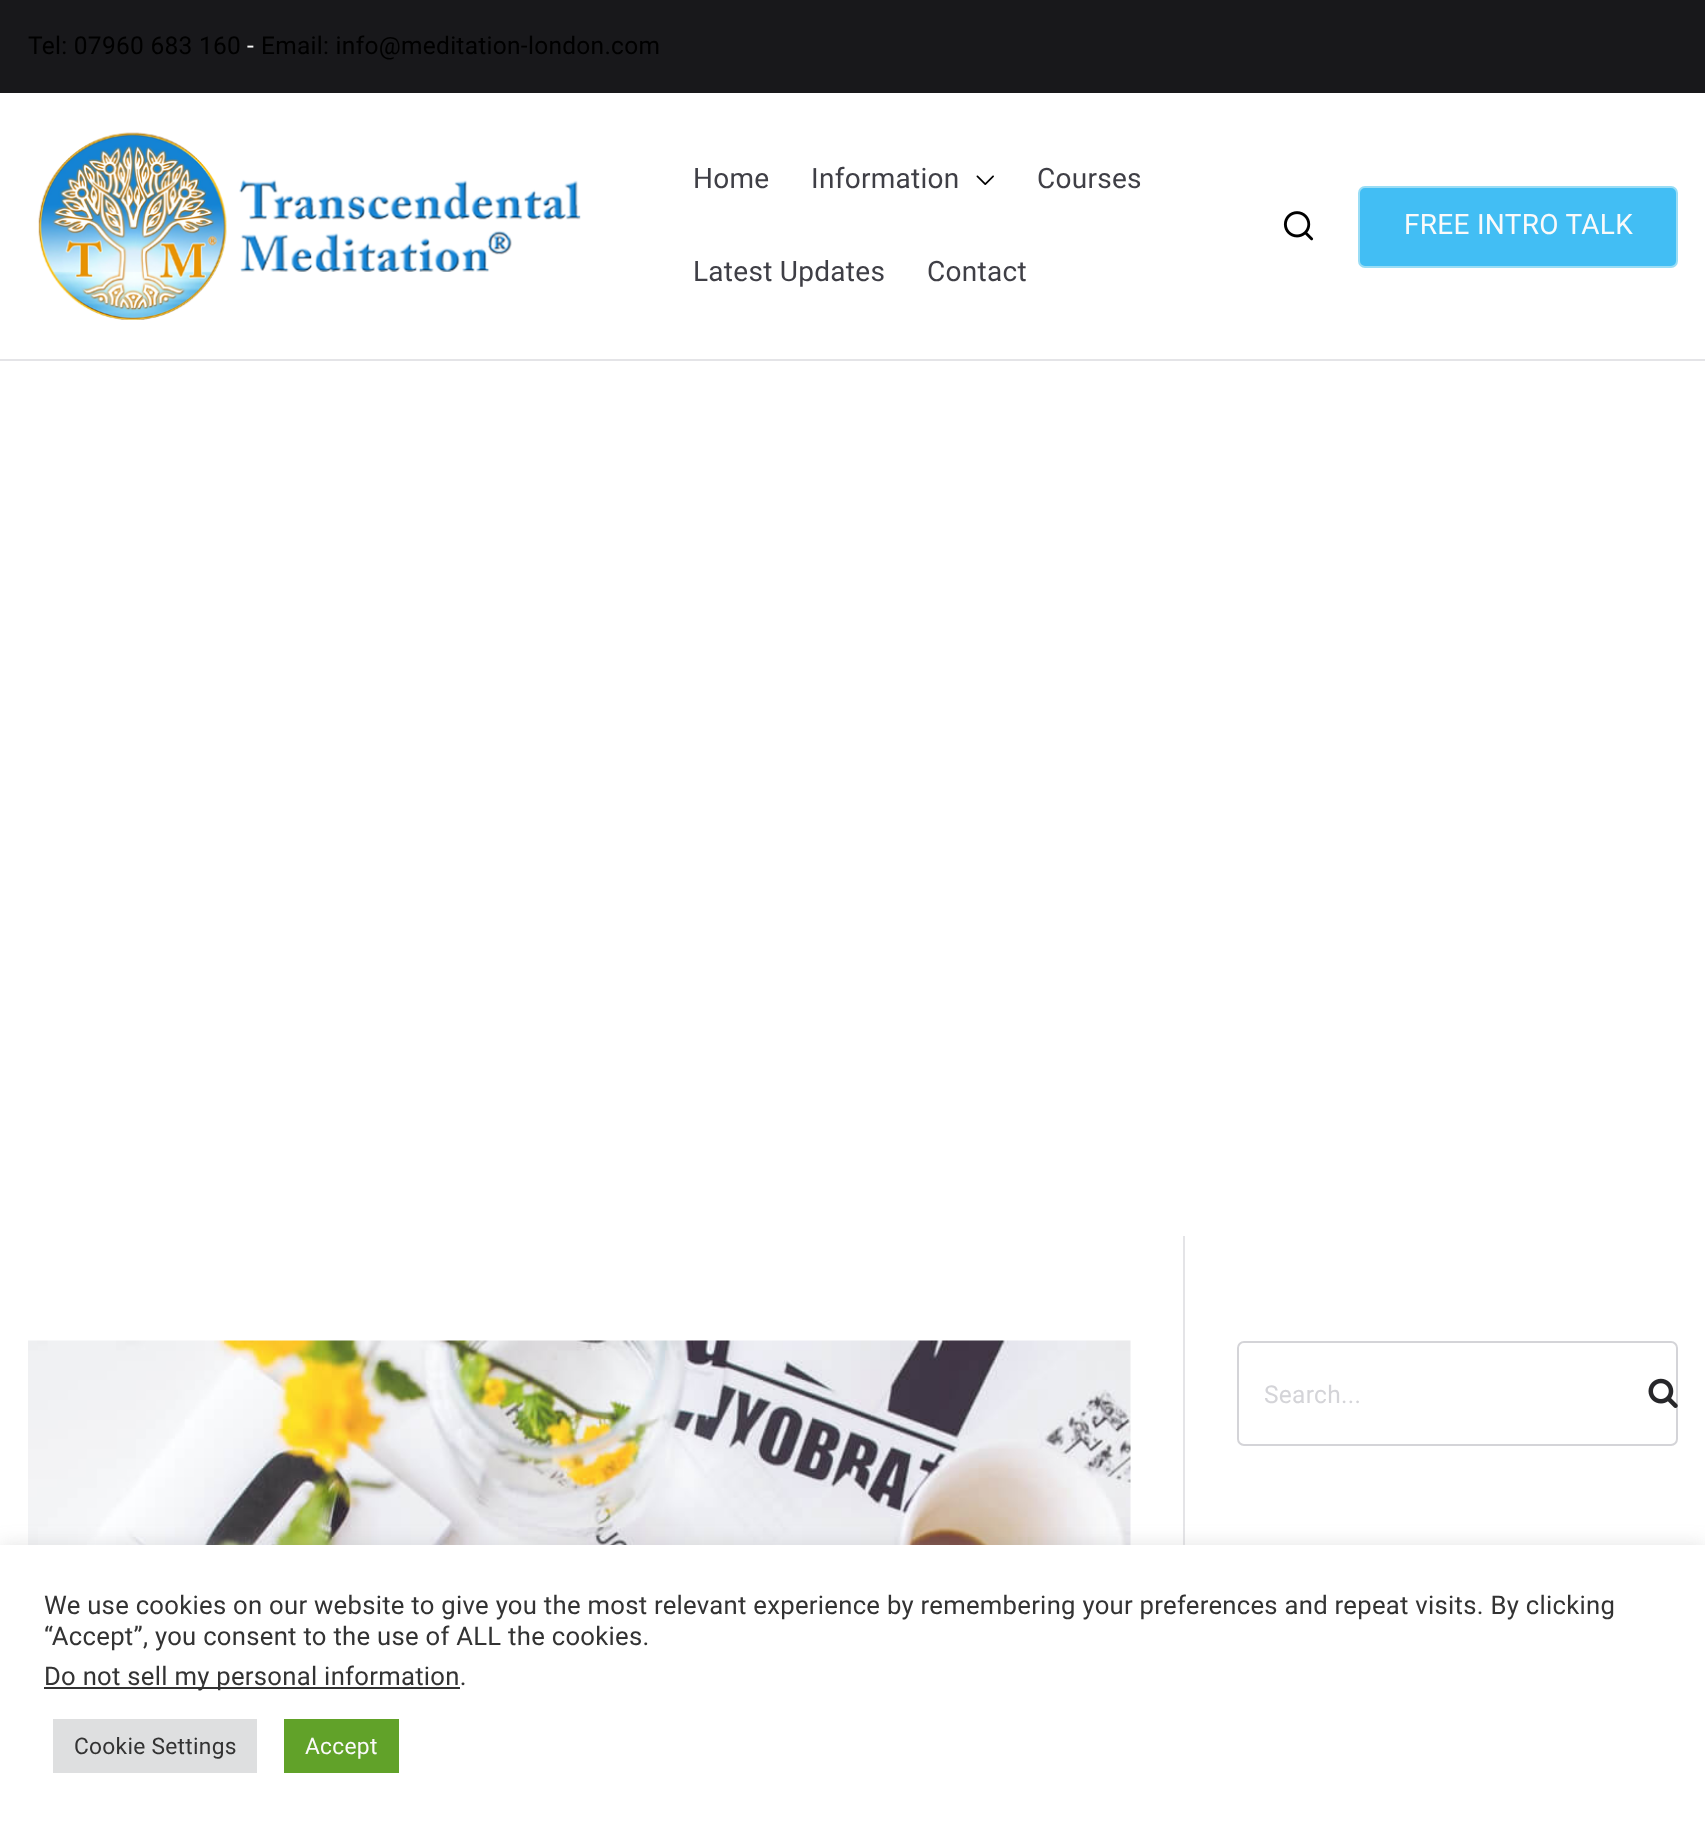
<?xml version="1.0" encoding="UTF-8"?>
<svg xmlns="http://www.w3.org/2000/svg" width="1705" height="1824">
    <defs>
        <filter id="blur1" x="-50%" y="-200%" width="200%" height="500%"><feGaussianBlur stdDeviation="9"/></filter>
    </defs>
    <rect width="100%" height="100%" fill="#E4E4E7"/>
    <rect x="0" y="0" width="1705" height="93" fill="#18181B"/>
    <text x="28" y="54" font-family="Roboto" font-size="24.5" letter-spacing="0.28" fill="#000000">Tel: 07960 683 160</text>
    <text x="247" y="54" font-family="Roboto" font-size="24.5" letter-spacing="0.28" fill="#FAFAFA">-</text>
    <text x="261" y="54" font-family="Roboto" font-size="24.5" letter-spacing="0.28" fill="#000000">Email: info@meditation-london.com</text>
    <rect x="0" y="93" width="1705" height="266" fill="#FFFFFF"/>
    <image x="38" y="132" width="543" height="188" href="img_01.png"/>
    <text x="693" y="188" font-family="Roboto" font-size="28" letter-spacing="0.28" fill="#3F3F46">Home</text>
    <text x="811" y="188" font-family="Roboto" font-size="28" letter-spacing="0.28" fill="#3F3F46">Information</text>
    <image x="976" y="175" width="18" height="10" href="img_02.png"/>
    <text x="1037" y="188" font-family="Roboto" font-size="28" letter-spacing="0.28" fill="#3F3F46">Courses</text>
    <text x="693" y="281" font-family="Roboto" font-size="28" letter-spacing="0.28" fill="#3F3F46">Latest Updates</text>
    <text x="927" y="281" font-family="Roboto" font-size="28" letter-spacing="0.28" fill="#3F3F46">Contact</text>
    <image x="1283" y="211" width="31" height="30" href="img_03.png"/>
    <rect x="1359" y="187" width="318" height="80" rx="6" fill="#42BEF4" stroke="#9ADDF5" stroke-width="2"/>
    <text x="1404" y="234" font-family="Roboto" font-size="28" letter-spacing="0.28" fill="#FAFAFA">FREE INTRO TALK</text>
    <rect x="0" y="361" width="1705" height="1184" fill="#FFFFFF"/>
    <image x="28" y="1340" width="1103" height="205" href="img_04.png"/>
    <rect x="1183" y="1236" width="2" height="309" fill="#E4E4E7"/>
    <rect x="1238" y="1342" width="439" height="103" rx="6" fill="none" stroke="#D4D4D8" stroke-width="2"/>
    <text x="1264" y="1403" font-family="Roboto" font-size="24.5" letter-spacing="0.28" fill="#D4D4D8">Search...</text>
    <image x="1648" y="1378" width="30" height="30" href="img_05.png"/>
    <rect x="0" y="1544" width="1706" height="280" fill="#ACABAB" fill-opacity="0.3" filter="url(#blur1)"/>
    <rect x="0" y="1545" width="1705" height="279" fill="#FFFFFF"/>
    <text font-family="Roboto" font-size="25.67" letter-spacing="0.28" fill="#333333">
        <tspan x="44" y="1614">We use cookies on our website to give you the most relevant experience by remembering your preferences and repeat visits. By clicking</tspan>
        <tspan x="44" y="1645">“Accept”, you consent to the use of ALL the cookies.</tspan>
    </text>
    <rect x="44" y="1687" width="416" height="2" fill="#333333"/>
    <text x="44" y="1685" font-family="Roboto" font-size="25.67" letter-spacing="0.28" fill="#333333">Do not sell my personal information.</text>
    <rect x="53" y="1719" width="204" height="54" fill="#DEDFE0"/>
    <text x="74" y="1754" font-family="Roboto" font-size="22.75" letter-spacing="0.28" fill="#333333">Cookie Settings</text>
    <rect x="284" y="1719" width="115" height="54" fill="#61A229"/>
    <text x="305" y="1754" font-family="Roboto" font-size="22.75" letter-spacing="0.28" fill="#FAFAFA">Accept</text>
</svg>
